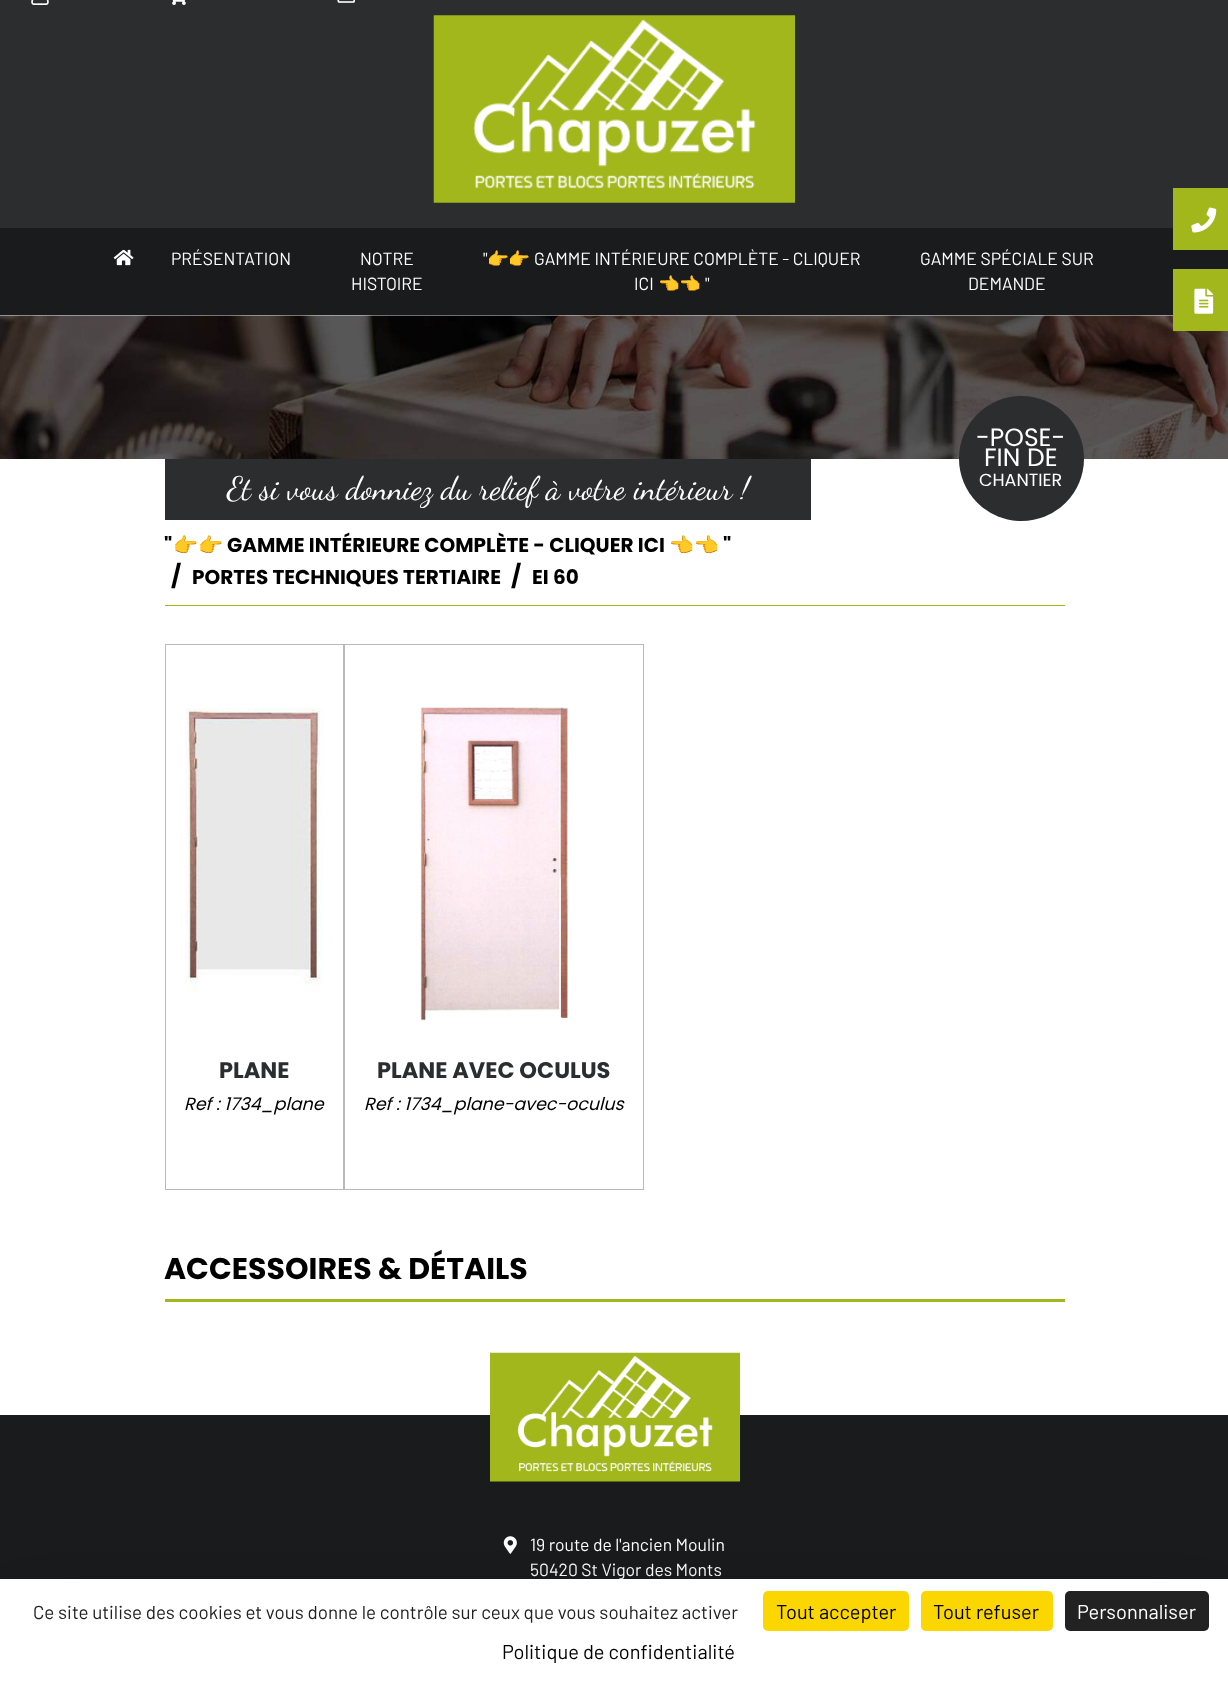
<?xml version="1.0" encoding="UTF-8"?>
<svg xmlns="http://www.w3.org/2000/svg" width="1228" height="1683">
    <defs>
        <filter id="blur1" x="-50%" y="-200%" width="200%" height="500%"><feGaussianBlur stdDeviation="37.5"/></filter>
    </defs>
    <rect width="100%" height="100%" fill="#FFFFFF"/>
    <rect x="0" y="0" width="1228" height="228" fill="#2C2D2F"/>
    <image x="31" y="0" width="18" height="5" href="img_01.png"/>
    <image x="172" y="0" width="14" height="5" href="img_02.png"/>
    <image x="337" y="0" width="18" height="3" href="img_03.png"/>
    <image x="433" y="15" width="362" height="188" href="img_04.png"/>
    <rect x="0" y="228" width="1228" height="87" fill="#1A1B1D"/>
    <image x="113" y="249" width="21" height="17" href="img_05.png"/>
    <text x="171" y="265" font-family="Barlow" font-size="17.5" fill="#FFFFFF">PRÉSENTATION</text>
    <text x="360" y="265" font-family="Barlow" font-size="17.5" fill="#FFFFFF">NOTRE</text>
    <text x="351" y="290" font-family="Barlow" font-size="17.5" fill="#FFFFFF">HISTOIRE</text>
    <text x="483" y="265" font-family="Barlow" font-size="17.5" fill="#FFFFFF">"</text>
    <text x="487" y="265" font-family="Noto Color Emoji" font-size="17.5" fill="#FFFFFF">👉👉</text>
    <text x="534" y="265" font-family="Barlow" font-size="17.5" fill="#FFFFFF">GAMME INTÉRIEURE COMPLÈTE - CLIQUER</text>
    <text x="634" y="290" font-family="Barlow" font-size="17.5" fill="#FFFFFF">ICI</text>
    <text x="658" y="290" font-family="Noto Color Emoji" font-size="17.5" fill="#FFFFFF">👈👈</text>
    <text x="705" y="290" font-family="Barlow" font-size="17.5" fill="#FFFFFF">"</text>
    <text x="920" y="265" font-family="Barlow" font-size="17.5" fill="#FFFFFF">GAMME SPÉCIALE SUR</text>
    <text x="968" y="290" font-family="Barlow" font-size="17.5" fill="#FFFFFF">DEMANDE</text>
    <rect x="1173" y="188" width="55" height="62" fill="#A2B71C"/>
    <image x="1191" y="207" width="26" height="26" href="img_06.png"/>
    <image x="0" y="315" width="1228" height="144" href="img_08.png"/>
    <rect x="1173" y="269" width="55" height="62" fill="#A2B71C"/>
    <image x="1194" y="288" width="20" height="26" href="img_07.png"/>
    <circle cx="1021.5" cy="458.5" r="62.5" fill="#2C2D2F"/>
    <text x="976" y="446" font-family="Poppins" font-size="25" fill="#FFFFFF">-POSE-</text>
    <text x="984" y="466" font-family="Poppins" font-size="25" fill="#FFFFFF">FIN DE</text>
    <text x="979" y="486" font-family="Poppins" font-size="17.5" fill="#FFFFFF">CHANTIER</text>
    <rect x="165" y="459" width="646" height="61" fill="#2C2D2F"/>
    <text x="227" y="499" font-family="Dancing Script" font-size="32.5" fill="#FFFFFF">Et si vous donniez du relief à votre intérieur !</text>
    <rect x="165" y="605" width="900" height="1" fill="#A2B71C"/>
    <text x="164" y="552" font-family="Poppins" font-size="20" font-weight="700" fill="#000000">"</text>
    <text x="173" y="552" font-family="Noto Color Emoji" font-size="20" font-weight="700" fill="#000000">👉👉</text>
    <text x="227" y="552" font-family="Poppins" font-size="20" font-weight="700" fill="#000000">GAMME INTÉRIEURE COMPLÈTE - CLIQUER ICI</text>
    <text x="669" y="552" font-family="Noto Color Emoji" font-size="20" font-weight="700" fill="#000000">👈👈</text>
    <text x="723" y="552" font-family="Poppins" font-size="20" font-weight="700" fill="#000000">"</text>
    <text x="171" y="584" font-family="Poppins" font-size="22.5" font-weight="700" fill="#000000">/</text>
    <text x="192" y="584" font-family="Poppins" font-size="20" font-weight="700" fill="#000000">PORTES TECHNIQUES TERTIAIRE</text>
    <text x="511" y="584" font-family="Poppins" font-size="22.5" font-weight="700" fill="#000000">/</text>
    <text x="532" y="584" font-family="Poppins" font-size="20" font-weight="700" fill="#000000">EI 60</text>
    <rect x="165.5" y="644.5" width="178" height="545" fill="none" stroke="#BBB8B8"/>
    <image x="185" y="708" width="139" height="284" href="img_09.png"/>
    <text x="219" y="1078" font-family="Poppins" font-size="22.5" font-weight="700" fill="#2C2D2F">PLANE</text>
    <text x="184" y="1110" font-family="Poppins" font-size="17.5" font-style="italic" fill="#000000">Ref : 1734_plane</text>
    <rect x="344.5" y="644.5" width="299" height="545" fill="none" stroke="#BBB8B8"/>
    <image x="420" y="707" width="148" height="314" href="img_10.png"/>
    <text x="377" y="1078" font-family="Poppins" font-size="22.5" font-weight="700" fill="#2C2D2F">PLANE AVEC OCULUS</text>
    <text x="364" y="1110" font-family="Poppins" font-size="17.5" font-style="italic" fill="#000000">Ref : 1734_plane-avec-oculus</text>
    <rect x="165" y="1299" width="900" height="3" fill="#A2B71C"/>
    <text x="164" y="1279" font-family="Poppins" font-size="30" font-weight="700" fill="#000000">ACCESSOIRES &amp; DÉTAILS</text>
    <rect x="0" y="1415" width="1228" height="164" fill="#1A1B1D"/>
    <image x="490" y="1352" width="250" height="130" href="img_11.png"/>
    <image x="503" y="1536" width="14" height="18" href="img_12.png"/>
    <text font-family="Barlow" font-size="17.5" fill="#FFFFFF">
        <tspan x="530" y="1551">19 route de l'ancien Moulin</tspan>
        <tspan x="530" y="1576">50420 St Vigor des Monts</tspan>
    </text>
    <rect x="0" y="1604" width="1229" height="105" fill="#000000" fill-opacity="0.25" filter="url(#blur1)"/>
    <rect x="0" y="1579" width="1228" height="104" fill="#FFFFFF"/>
    <text x="33" y="1619" font-family="Barlow" font-size="18.75" fill="#222222">Ce site utilise des cookies et vous donne le contrôle sur ceux que vous souhaitez activer</text>
    <rect x="763" y="1591" width="146" height="40" rx="5" fill="#FBD600"/>
    <text x="776" y="1619" font-family="Barlow" font-size="20" fill="#000000">Tout accepter</text>
    <rect x="921" y="1591" width="132" height="40" rx="5" fill="#FBD600"/>
    <text x="933" y="1619" font-family="Barlow" font-size="20" fill="#000000">Tout refuser</text>
    <rect x="1065" y="1591" width="144" height="40" rx="5" fill="#222222"/>
    <text x="1077" y="1619" font-family="Barlow" font-size="20" fill="#FFFFFF">Personnaliser</text>
    <text x="502" y="1659" font-family="Barlow" font-size="20" fill="#000000">Politique de confidentialité</text>
</svg>
